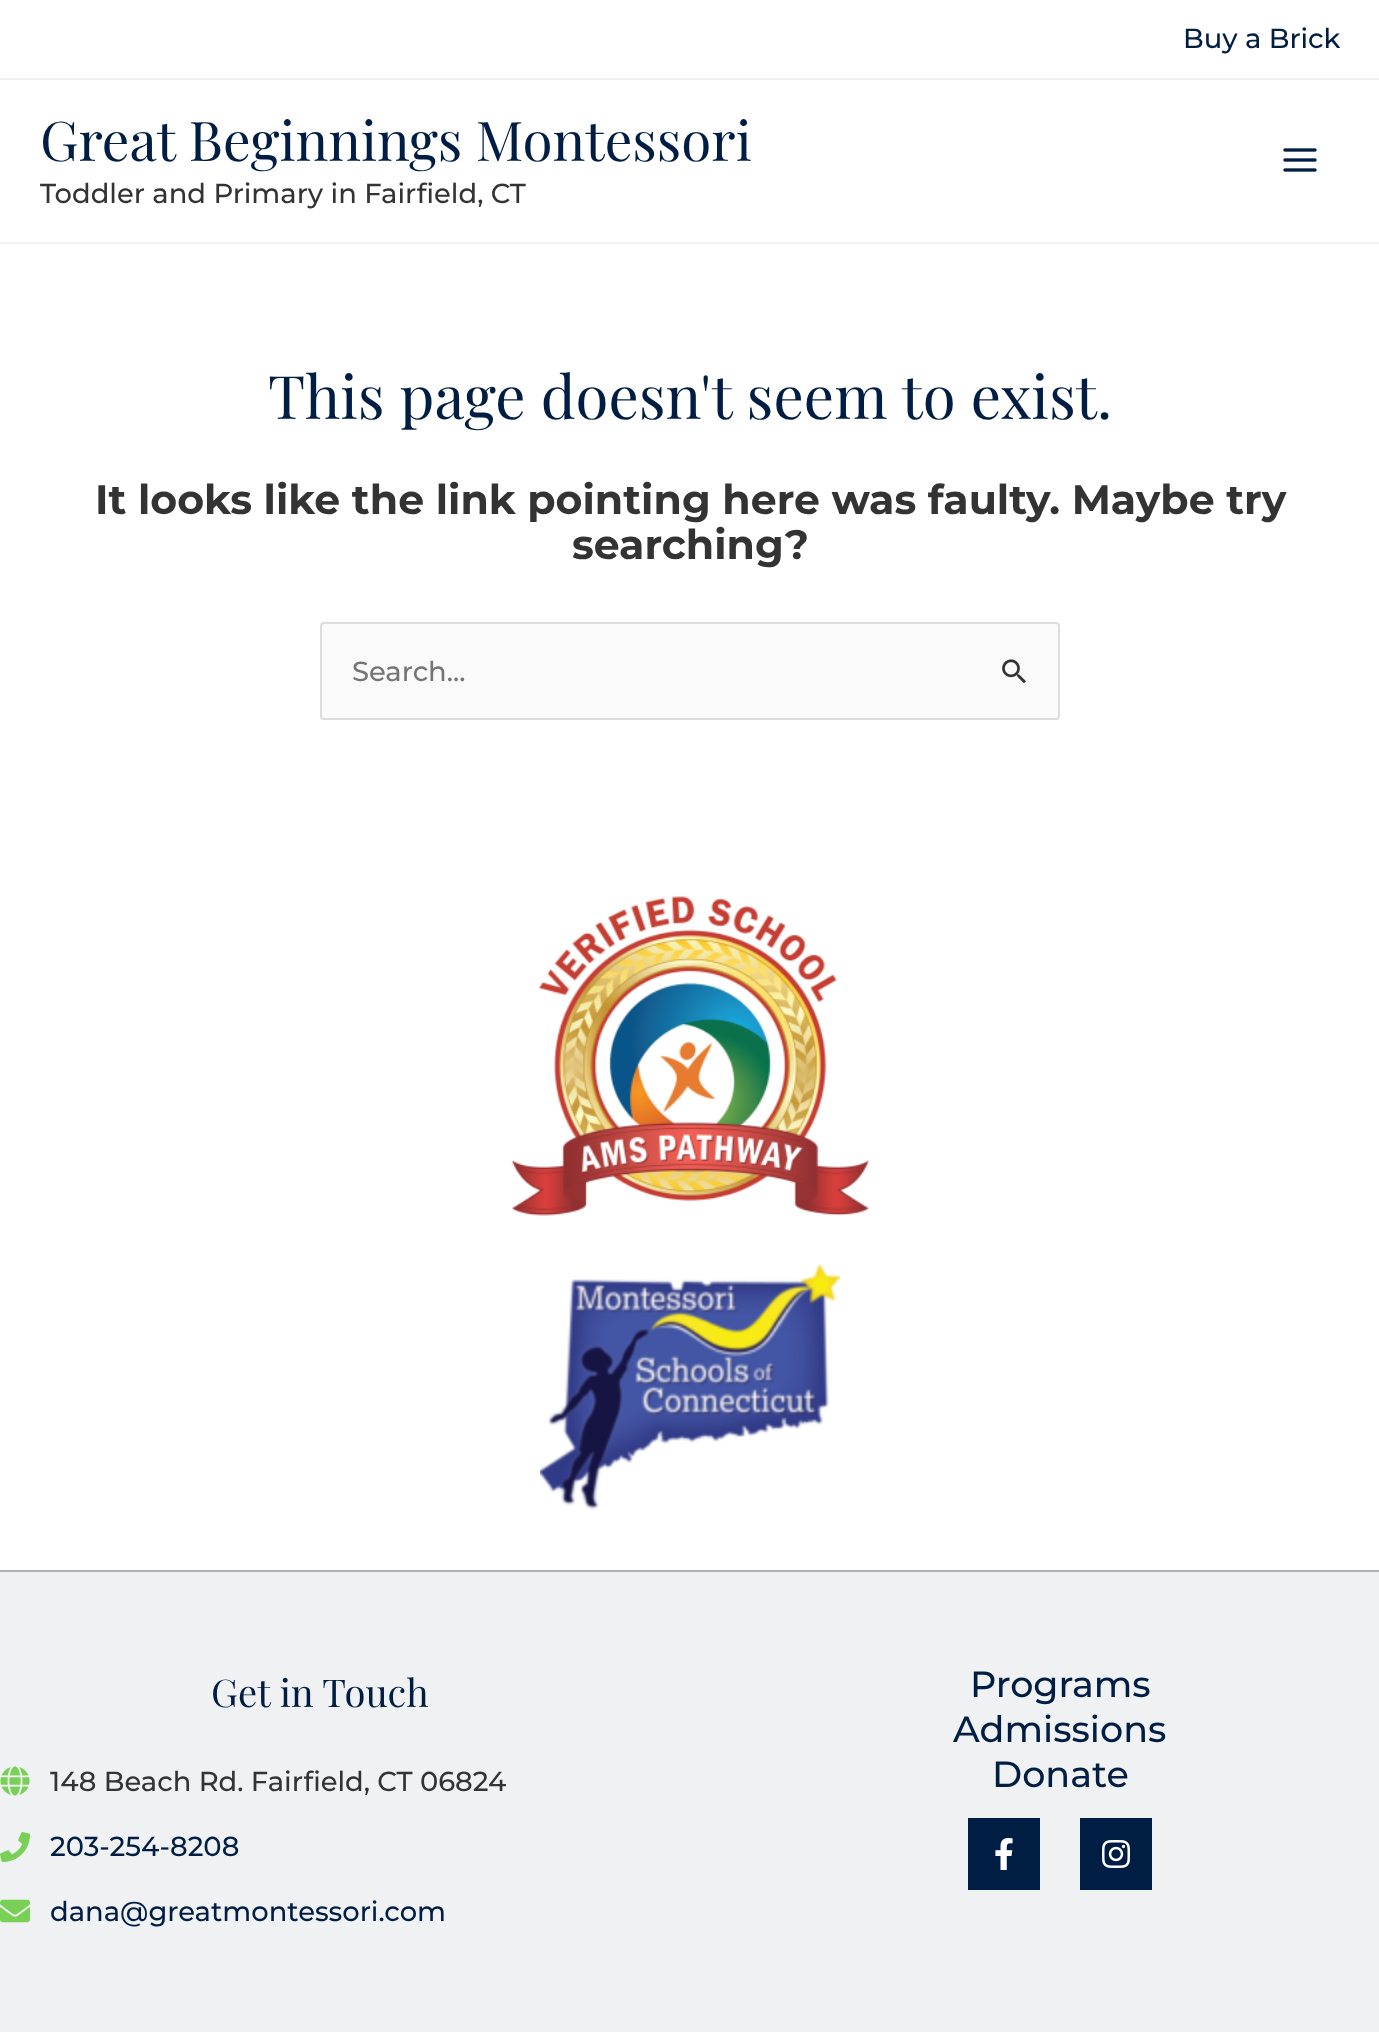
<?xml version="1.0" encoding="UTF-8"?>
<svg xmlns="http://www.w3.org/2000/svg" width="1379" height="2032">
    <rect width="100%" height="100%" fill="#FFFFFF"/>
    <rect x="0" y="78" width="1379" height="2" fill="#F0F1F2"/>
    <text x="1183" y="48" font-family="Montserrat" font-size="27.4" font-weight="500" fill="#001D44">Buy a Brick</text>
    <rect x="0" y="242" width="1379" height="2" fill="#F0F1F2"/>
    <text x="40" y="161" font-family="Playfair Display" font-size="54.75" fill="#001D44">Great Beginnings Montessori</text>
    <text x="40" y="203" font-family="Montserrat" font-size="27.4" font-weight="500" fill="#333333">Toddler and Primary in Fairfield, CT</text>
    <image x="1283" y="148" width="34" height="24" href="img_01.png"/>
    <text x="268" y="419" font-family="Playfair Display" font-size="60" fill="#001D44">This page doesn't seem to exist.</text>
    <text x="95" y="514" font-family="Montserrat" font-size="41.05" font-weight="700" fill="#333333">It looks like the link pointing here was faulty. Maybe try</text>
    <text x="572" y="559" font-family="Montserrat" font-size="41.05" font-weight="700" fill="#333333">searching?</text>
    <rect x="321" y="623" width="738" height="96" rx="3" fill="#FAFAFA" stroke="#DDDDDD" stroke-width="2"/>
    <text x="352" y="681" font-family="Montserrat" font-size="27.4" font-weight="500" fill="#757575">Search...</text>
    <image x="1002" y="659" width="24" height="25" href="img_02.png"/>
    <image x="511" y="896" width="358" height="320" href="img_03.png"/>
    <image x="540" y="1263" width="300" height="247" href="img_04.png"/>
    <rect x="0" y="1572" width="1379" height="460" fill="#F0F1F2"/>
    <rect x="0" y="1570" width="1379" height="2" fill="#B1B2B3"/>
    <text x="211" y="1707" font-family="Playfair Display" font-size="38.25" fill="#001D44">Get in Touch</text>
    <image x="0" y="1766" width="30" height="30" href="img_05.png"/>
    <text x="50" y="1791" font-family="Montserrat" font-size="27.4" font-weight="500" fill="#333333">148 Beach Rd. Fairfield, CT 06824</text>
    <image x="0" y="1832" width="30" height="30" href="img_06.png"/>
    <text x="50" y="1856" font-family="Montserrat" font-size="27.4" font-weight="500" fill="#001D44">203-254-8208</text>
    <image x="0" y="1899" width="30" height="24" href="img_07.png"/>
    <text x="50" y="1921" font-family="Montserrat" font-size="27.4" font-weight="500" fill="#001D44">dana@greatmontessori.com</text>
    <text x="970" y="1697" font-family="Montserrat" font-size="36.5" font-weight="500" fill="#001D44">Programs</text>
    <text x="953" y="1742" font-family="Montserrat" font-size="36.5" font-weight="500" fill="#001D44">Admissions</text>
    <text x="992" y="1787" font-family="Montserrat" font-size="36.5" font-weight="500" fill="#001D44">Donate</text>
    <rect x="968" y="1818" width="72" height="72" fill="#001D44"/>
    <image x="995" y="1838" width="18" height="32" href="img_08.png"/>
    <rect x="1080" y="1818" width="72" height="72" fill="#001D44"/>
    <image x="1102" y="1840" width="28" height="28" href="img_09.png"/>
</svg>
